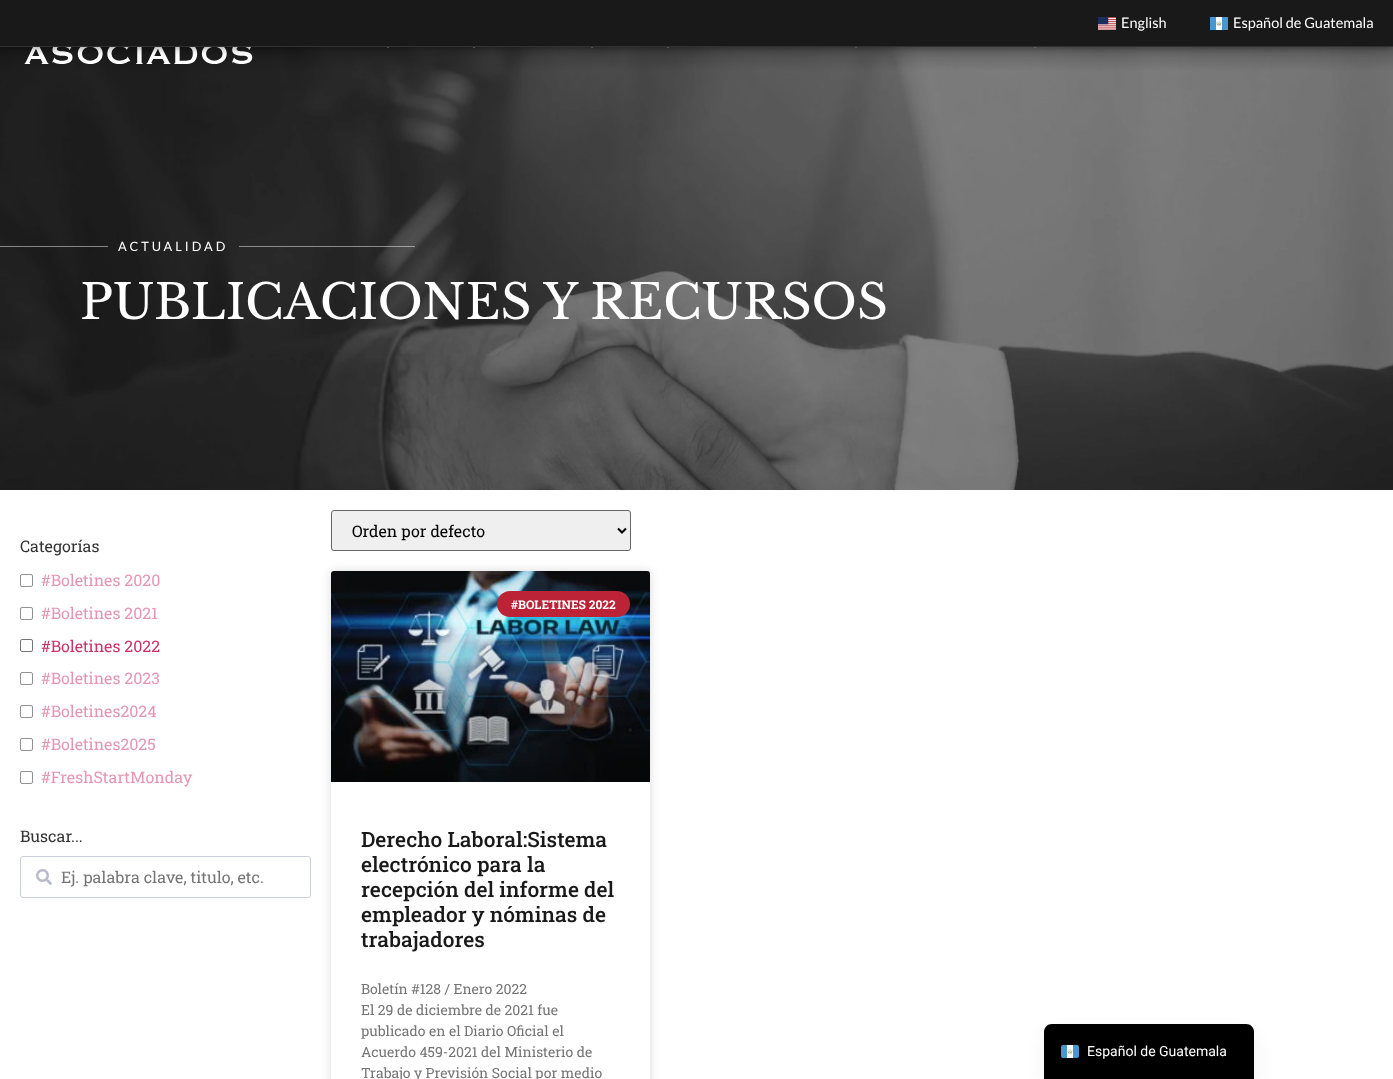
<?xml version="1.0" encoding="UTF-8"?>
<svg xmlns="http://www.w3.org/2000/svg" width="1393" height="1079">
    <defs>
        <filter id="blur1" x="-50%" y="-200%" width="200%" height="500%"><feGaussianBlur stdDeviation="5"/></filter>
        <linearGradient id="g1" gradientUnits="userSpaceOnUse" x1="491" y1="782" x2="491" y2="571"><stop offset="0" stop-color="#000000" stop-opacity="0.35"/><stop offset="0.75" stop-color="#000000" stop-opacity="0"/></linearGradient>
        <filter id="blur2" x="-50%" y="-200%" width="200%" height="500%"><feGaussianBlur stdDeviation="10"/></filter>
    </defs>
    <rect width="100%" height="100%" fill="#FFFFFF"/>
    <image x="0" y="47" width="1393" height="443" href="img_04.png"/>
    <image x="24" y="47" width="229" height="17" href="img_03.png"/>
    <rect x="387" y="47" width="2" height="1" fill="#A8A8A8" fill-opacity="0.49"/>
    <rect x="473" y="47" width="2" height="1" fill="#A8A8A8" fill-opacity="0.49"/>
    <rect x="591" y="47" width="2" height="1" fill="#A8A8A8" fill-opacity="0.49"/>
    <rect x="667" y="47" width="2" height="1" fill="#A8A8A8" fill-opacity="0.49"/>
    <rect x="855" y="47" width="2" height="1" fill="#A8A8A8" fill-opacity="0.49"/>
    <rect x="1034" y="47" width="2" height="1" fill="#A8A8A8" fill-opacity="0.49"/>
    <rect x="0" y="0" width="1393" height="47" fill="#000000" fill-opacity="0.5" filter="url(#blur1)"/>
    <rect x="0" y="0" width="1393" height="46" fill="#191919"/>
    <rect x="0" y="46" width="1393" height="1" fill="#313131"/>
    <image x="1098" y="17" width="18" height="13" href="img_01.png"/>
    <text x="1121" y="28" font-family="Lato" font-size="14.5" fill="#FFFFFF">English</text>
    <image x="1210" y="17" width="18" height="13" href="img_02.png"/>
    <text x="1233" y="28" font-family="Lato" font-size="14.5" fill="#FFFFFF">Español de Guatemala</text>
    <rect x="0" y="246" width="108" height="1" fill="#FFFFFF" fill-opacity="0.47"/>
    <text x="118" y="251" font-family="Lato" font-size="12.75" letter-spacing="3" fill="#FFFFFF">ACTUALIDAD</text>
    <rect x="239" y="246" width="176" height="1" fill="#FFFFFF" fill-opacity="0.47"/>
    <text x="80" y="319" font-family="Libre Baskerville" font-size="48" fill="#FFFFFF">PUBLICACIONES Y RECURSOS</text>
    <text x="20" y="552" font-family="Roboto Slab" font-size="16" fill="#333333">Categorías</text>
    <rect x="20.5" y="574.5" width="12" height="12" rx="1.5" fill="none" stroke="#919191"/>
    <text x="41" y="586" font-family="Roboto Slab" font-size="16" fill="#E597B1">#Boletines 2020</text>
    <rect x="20.5" y="607.5" width="12" height="12" rx="1.5" fill="none" stroke="#919191"/>
    <text x="41" y="619" font-family="Roboto Slab" font-size="16" fill="#E597B1">#Boletines 2021</text>
    <rect x="20.5" y="639.5" width="12" height="12" rx="1.5" fill="none" stroke="#767676"/>
    <text x="41" y="652" font-family="Roboto Slab" font-size="16" fill="#CC3366">#Boletines 2022</text>
    <rect x="20.5" y="672.5" width="12" height="12" rx="1.5" fill="none" stroke="#919191"/>
    <text x="41" y="684" font-family="Roboto Slab" font-size="16" fill="#E597B1">#Boletines 2023</text>
    <rect x="20.5" y="705.5" width="12" height="12" rx="1.5" fill="none" stroke="#919191"/>
    <text x="41" y="717" font-family="Roboto Slab" font-size="16" fill="#E597B1">#Boletines2024</text>
    <rect x="20.5" y="738.5" width="12" height="12" rx="1.5" fill="none" stroke="#919191"/>
    <text x="41" y="750" font-family="Roboto Slab" font-size="16" fill="#E597B1">#Boletines2025</text>
    <rect x="20.5" y="771.5" width="12" height="12" rx="1.5" fill="none" stroke="#919191"/>
    <text x="41" y="783" font-family="Roboto Slab" font-size="16" fill="#E597B1">#FreshStartMonday</text>
    <text x="20" y="842" font-family="Roboto Slab" font-size="16" fill="#333333">Buscar...</text>
    <rect x="20.5" y="856.5" width="290" height="41" rx="2.5" fill="none" stroke="#CCD0DC"/>
    <image x="36" y="869" width="16" height="16" href="img_05.png"/>
    <text x="61" y="883" font-family="Roboto Slab" font-size="16" fill="#757575">Ej. palabra clave, titulo, etc.</text>
    <rect x="331.5" y="510.5" width="299" height="40" rx="2.5" fill="#EFEFEF" stroke="#666666"/>
    <path d="M 618 528.5 L 622 532.5 L 626 528.5" fill="none" stroke="#000000" stroke-width="2"/>
    <text x="352" y="537" font-family="Roboto Slab" font-size="16" fill="#000000">Orden por defecto</text>
    <rect x="331" y="571" width="319" height="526" rx="3" fill="#000000" fill-opacity="0.15" filter="url(#blur1)"/>
    <rect x="331" y="571" width="319" height="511" rx="3" fill="#FFFFFF"/>
    <image x="331" y="571" width="319" height="211" href="img_06.png"/>
    <rect x="331" y="634" width="319" height="148" fill="url(#g1)"/>
    <rect x="497" y="591" width="133" height="26" rx="13" fill="#BD2336"/>
    <text x="511" y="609" font-family="Roboto Slab" font-size="12" font-weight="700" fill="#FFFFFF">#BOLETINES 2022</text>
    <text font-family="Roboto Slab" font-size="21" font-weight="500" fill="#191919">
        <tspan x="361" y="847">Derecho Laboral:Sistema</tspan>
        <tspan x="361" y="872">electrónico para la</tspan>
        <tspan x="361" y="897">recepción del informe del</tspan>
        <tspan x="361" y="922">empleador y nóminas de</tspan>
        <tspan x="361" y="947">trabajadores</tspan>
    </text>
    <text font-family="Roboto Slab" font-size="14" fill="#757575">
        <tspan x="361" y="994">Boletín #128 / Enero 2022</tspan>
        <tspan x="361" y="1015">El 29 de diciembre de 2021 fue</tspan>
        <tspan x="361" y="1036">publicado en el Diario Oficial el</tspan>
        <tspan x="361" y="1057">Acuerdo 459-2021 del Ministerio de</tspan>
        <tspan x="361" y="1078">Trabajo y Previsión Social por medio</tspan>
    </text>
    <rect x="1044" y="1034" width="210" height="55" rx="8" fill="#000000" fill-opacity="0.05" filter="url(#blur2)"/>
    <path d="M 1052 1024 H 1246 C 1250.5 1024 1254 1027.5 1254 1032 V 1079 H 1044 V 1032 C 1044 1027.5 1047.5 1024 1052 1024 Z" fill="#000000"/>
    <image x="1061" y="1045" width="18" height="13" href="img_07.png"/>
    <text x="1087" y="1056" font-family="Roboto" font-size="14" fill="#FFFFFF">Español de Guatemala</text>
</svg>
